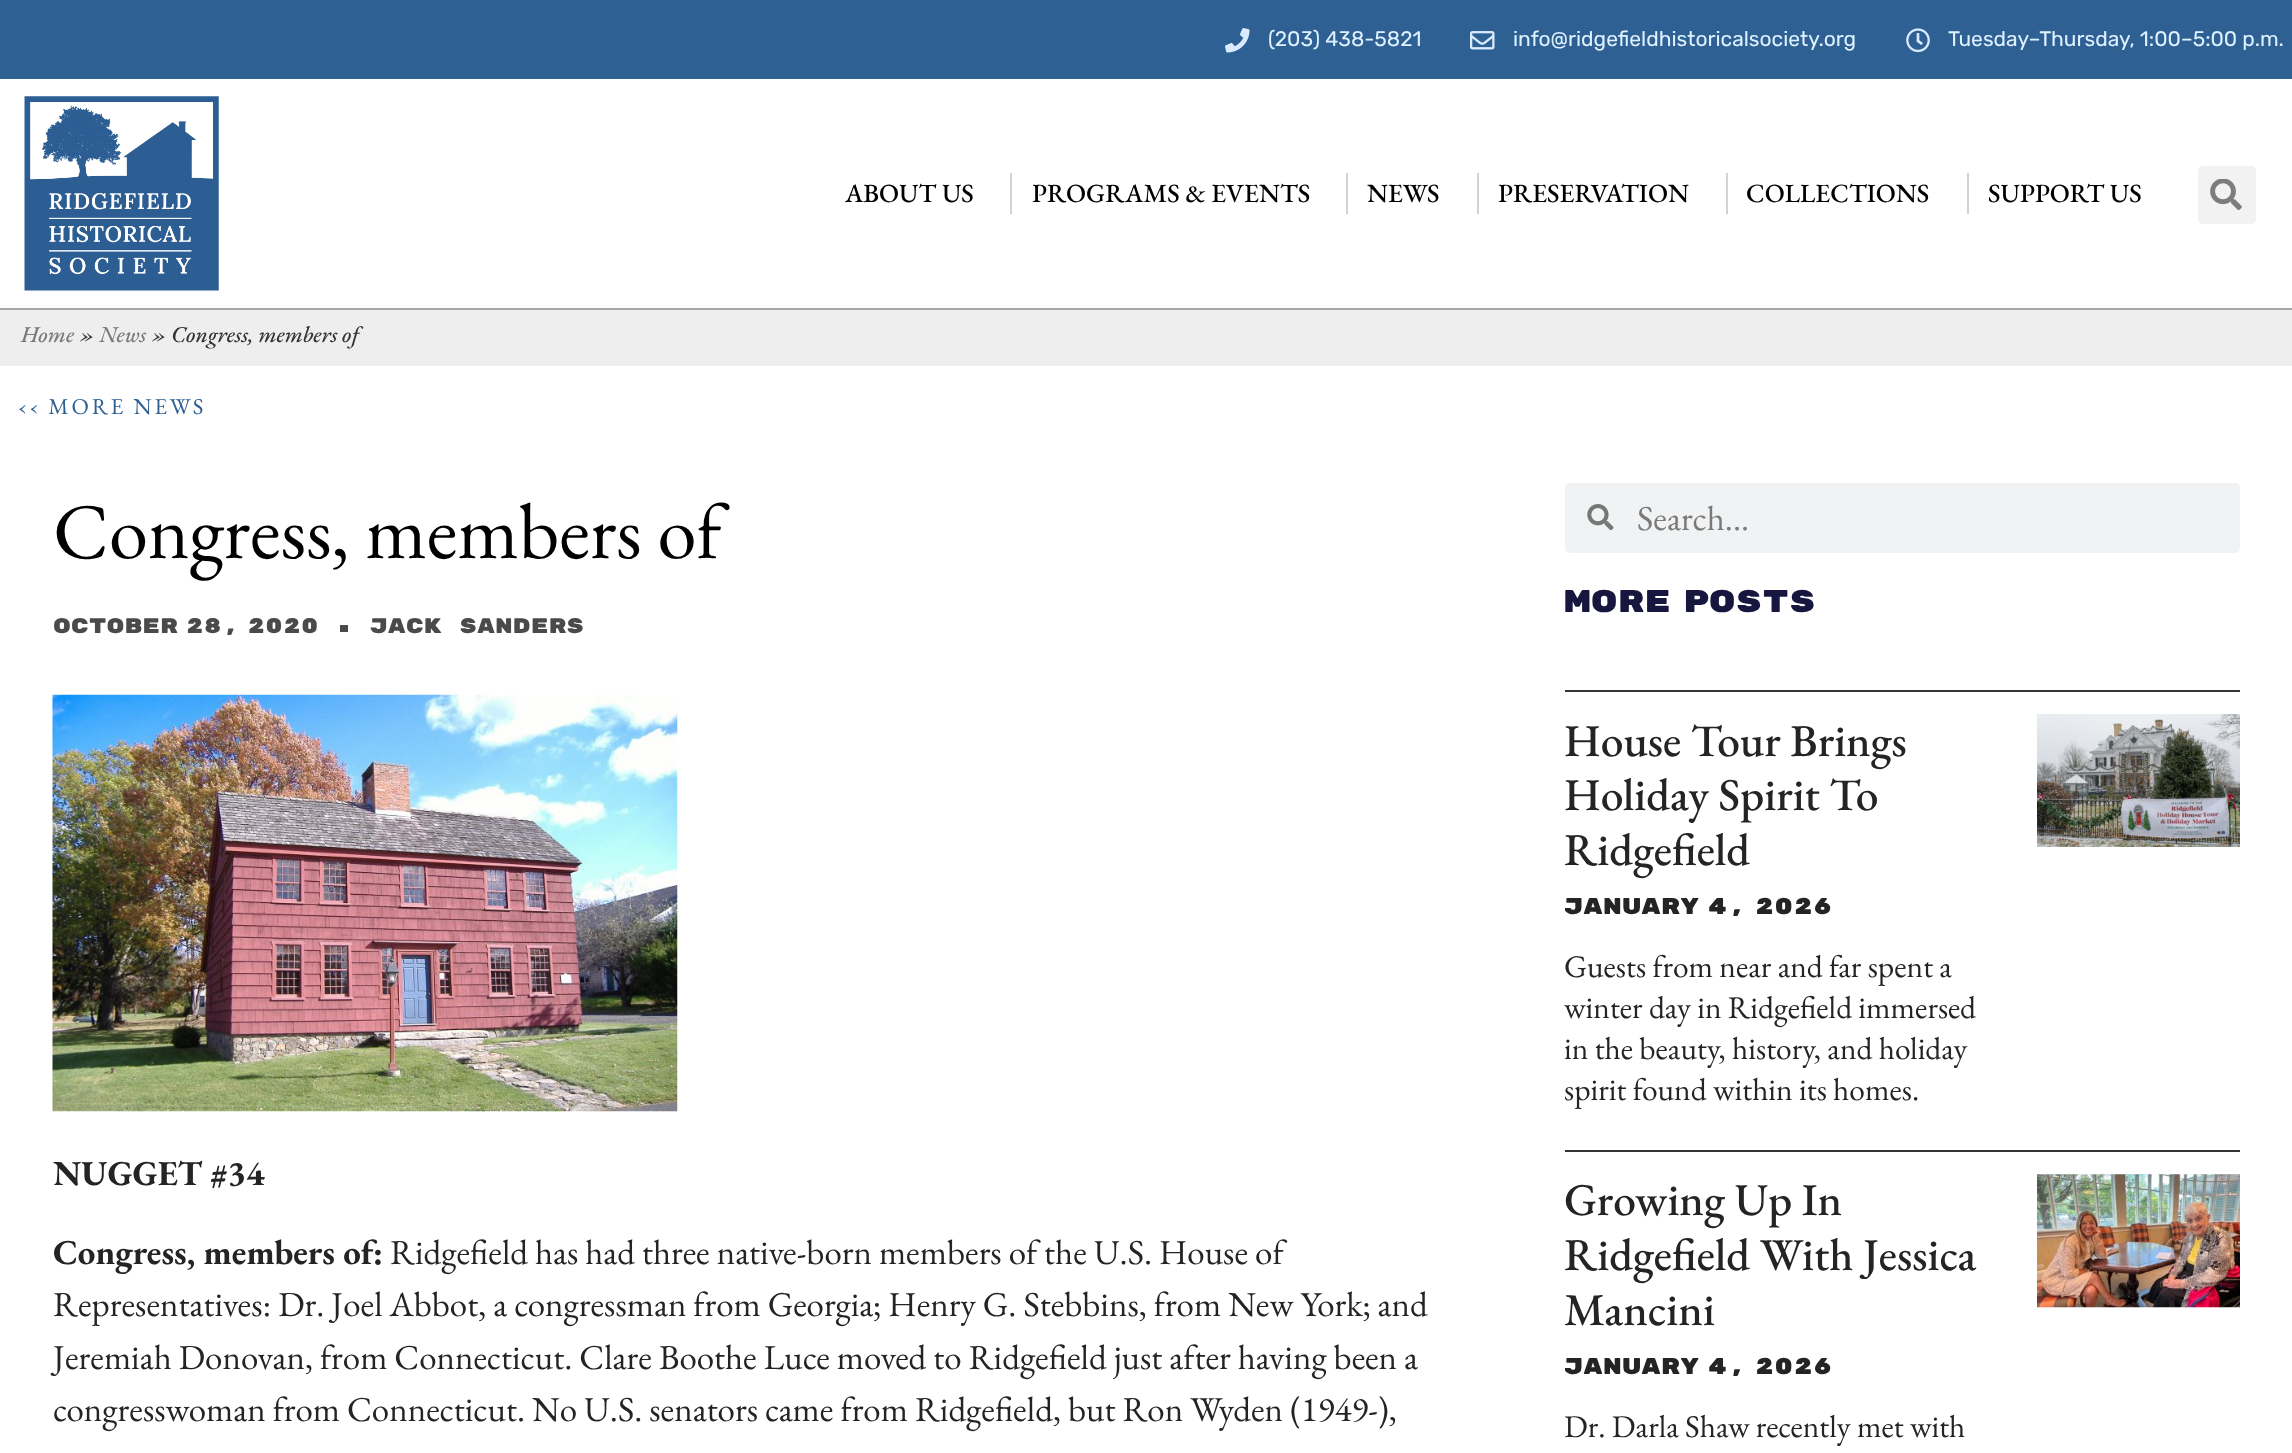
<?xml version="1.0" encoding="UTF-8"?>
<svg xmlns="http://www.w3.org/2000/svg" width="2292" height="1453">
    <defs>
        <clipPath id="clip1"><rect x="1565" y="691" width="675" height="443"/></clipPath>
        <clipPath id="clip2"><rect x="1565" y="1152" width="675" height="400"/></clipPath>
    </defs>
    <rect width="100%" height="100%" fill="#FFFFFF"/>
    <rect x="0" y="0" width="2292" height="79" fill="#2F6094"/>
    <image x="1225" y="28" width="25" height="25" href="img_01.png"/>
    <text x="1268" y="46" font-family="Rubik" font-size="21" fill="#DDF1FF">(203) 438-5821</text>
    <image x="1470" y="31" width="25" height="19" href="img_02.png"/>
    <text x="1513" y="46" font-family="Rubik" font-size="21" fill="#DDF1FF">info@ridgefieldhistoricalsociety.org</text>
    <image x="1906" y="28" width="24" height="25" href="img_03.png"/>
    <text x="1948" y="46" font-family="Rubik" font-size="21" fill="#DDF1FF">Tuesday–Thursday, 1:00–5:00 p.m.</text>
    <rect x="0" y="308" width="2292" height="2" fill="#A7A7A7"/>
    <image x="24" y="96" width="195" height="195" href="img_04.png"/>
    <text x="845" y="202" font-family="EB Garamond" font-size="26.25" font-weight="500" fill="#000000">ABOUT US</text>
    <rect x="1010" y="173" width="2" height="41" fill="#D2D2D2"/>
    <text x="1032" y="202" font-family="EB Garamond" font-size="26.25" font-weight="500" fill="#000000">PROGRAMS &amp; EVENTS</text>
    <rect x="1346" y="173" width="2" height="41" fill="#D2D2D2"/>
    <text x="1367" y="202" font-family="EB Garamond" font-size="26.25" font-weight="500" fill="#000000">NEWS</text>
    <rect x="1477" y="173" width="2" height="41" fill="#D2D2D2"/>
    <text x="1498" y="202" font-family="EB Garamond" font-size="26.25" font-weight="500" fill="#000000">PRESERVATION</text>
    <rect x="1726" y="173" width="2" height="41" fill="#D2D2D2"/>
    <text x="1746" y="202" font-family="EB Garamond" font-size="26.25" font-weight="500" fill="#000000">COLLECTIONS</text>
    <rect x="1967" y="173" width="2" height="41" fill="#D2D2D2"/>
    <text x="1988" y="202" font-family="EB Garamond" font-size="26.25" font-weight="500" fill="#000000">SUPPORT US</text>
    <rect x="2198" y="166" width="58" height="58" rx="5" fill="#F2F2F2"/>
    <image x="2210" y="179" width="32" height="31" href="img_05.png"/>
    <rect x="0" y="310" width="2292" height="56" fill="#EEEEEE"/>
    <text x="21" y="342" font-family="EB Garamond" font-size="22.75" font-weight="500" font-style="italic" fill="#7A7A7A">Home</text>
    <text x="79" y="342" font-family="EB Garamond" font-size="22.75" font-weight="500" font-style="italic" fill="#333333">»</text>
    <text x="99" y="342" font-family="EB Garamond" font-size="22.75" font-weight="500" font-style="italic" fill="#7A7A7A">News</text>
    <text x="151" y="342" font-family="EB Garamond" font-size="22.75" font-weight="500" font-style="italic" fill="#333333">» Congress, members of</text>
    <text x="18" y="414" font-family="EB Garamond" font-size="22.75" letter-spacing="2.75" fill="#2F6094">‹‹ MORE NEWS</text>
    <text x="53" y="558" font-family="EB Garamond" font-size="78.75" fill="#000000">Congress, members of</text>
    <text x="53" y="633" word-spacing="-10" font-family="Rubik Mono One" font-size="21" fill="#4A4A4A">October 28, 2020</text>
    <rect x="340" y="625" width="8" height="7" fill="#4A4A4A"/>
    <text x="370" y="633" font-family="Rubik Mono One" font-size="21" fill="#4A4A4A">Jack Sanders</text>
    <image x="52" y="694" width="626" height="418" href="img_06.png"/>
    <text x="53" y="1185" font-family="EB Garamond" font-size="35" font-weight="700" fill="#242424">NUGGET #34</text>
    <text x="53" y="1264" font-family="EB Garamond" font-size="35" font-weight="700" fill="#242424">Congress, members of:</text>
    <text x="390" y="1264" font-family="EB Garamond" font-size="35" fill="#242424">Ridgefield has had three native-born members of the U.S. House of</text>
    <text font-family="EB Garamond" font-size="35" fill="#242424">
        <tspan x="53" y="1316">Representatives: Dr. Joel Abbot, a congressman from Georgia; Henry G. Stebbins, from New York; and</tspan>
        <tspan x="53" y="1369">Jeremiah Donovan, from Connecticut. Clare Boothe Luce moved to Ridgefield just after having been a</tspan>
        <tspan x="53" y="1421">congresswoman from Connecticut. No U.S. senators came from Ridgefield, but Ron Wyden (1949-),</tspan>
    </text>
    <rect x="1565" y="483" width="675" height="70" rx="5" fill="#F1F2F3"/>
    <image x="1587" y="504" width="27" height="26" href="img_07.png"/>
    <text x="1637" y="530" font-family="EB Garamond" font-size="35" fill="#7A7A7A">Search...</text>
    <text x="1564" y="612" word-spacing="-16" font-family="Rubik Mono One" font-size="31.5" fill="#16163F">More Posts</text>
    <rect x="1565" y="690" width="675" height="2" fill="#333333"/>
    <text font-family="EB Garamond" font-size="45.5" font-weight="500" fill="#242424">
        <tspan x="1564" y="756">House Tour Brings</tspan>
        <tspan x="1564" y="810">Holiday Spirit To</tspan>
        <tspan x="1564" y="865">Ridgefield</tspan>
    </text>
    <g clip-path="url(#clip1)">
        <text x="1564" y="914" word-spacing="-11" font-family="Rubik Mono One" font-size="22.75" fill="#242424">January 4, 2026</text>
    </g>
    <text font-family="EB Garamond" font-size="31.5" fill="#242424">
        <tspan x="1564" y="977">Guests from near and far spent a</tspan>
        <tspan x="1564" y="1018">winter day in Ridgefield immersed</tspan>
        <tspan x="1564" y="1059">in the beauty, history, and holiday</tspan>
    </text>
    <g clip-path="url(#clip1)">
        <text x="1564" y="1100" font-family="EB Garamond" font-size="31.5" fill="#242424">spirit found within its homes.</text>
    </g>
    <image x="2037" y="714" width="203" height="133" href="img_08.png"/>
    <rect x="1565" y="1150" width="675" height="2" fill="#333333"/>
    <text font-family="EB Garamond" font-size="45.5" font-weight="500" fill="#242424">
        <tspan x="1564" y="1215">Growing Up In</tspan>
        <tspan x="1564" y="1270">Ridgefield With Jessica</tspan>
        <tspan x="1564" y="1325">Mancini</tspan>
    </text>
    <g clip-path="url(#clip2)">
        <text x="1564" y="1374" word-spacing="-11" font-family="Rubik Mono One" font-size="22.75" fill="#242424">January 4, 2026</text>
    </g>
    <text x="1564" y="1437" font-family="EB Garamond" font-size="31.5" fill="#242424">Dr. Darla Shaw recently met with</text>
    <image x="2037" y="1174" width="203" height="134" href="img_09.png"/>
</svg>
